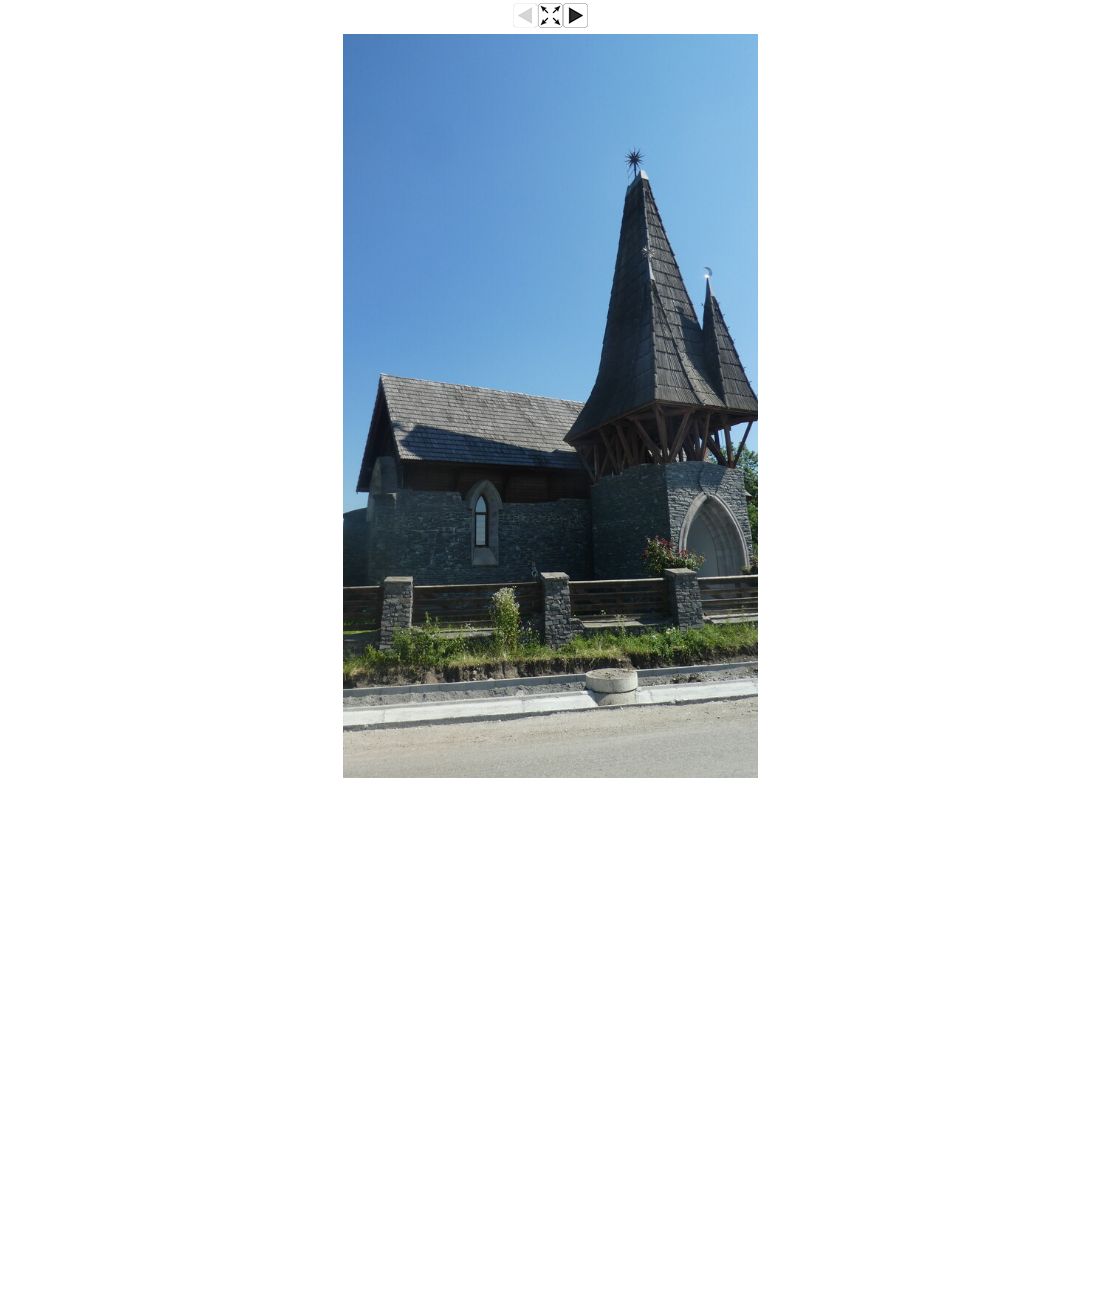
<?xml version="1.0" encoding="UTF-8"?>
<svg xmlns="http://www.w3.org/2000/svg" width="1101" height="1310">
    <rect width="100%" height="100%" fill="#FFFFFF"/>
    <image x="513" y="3" width="25" height="25" href="img_01.png"/>
    <image x="538" y="3" width="25" height="25" href="img_02.png"/>
    <image x="563" y="3" width="25" height="25" href="img_03.png"/>
    <image x="343" y="34" width="415" height="744" href="img_04.png"/>
</svg>
